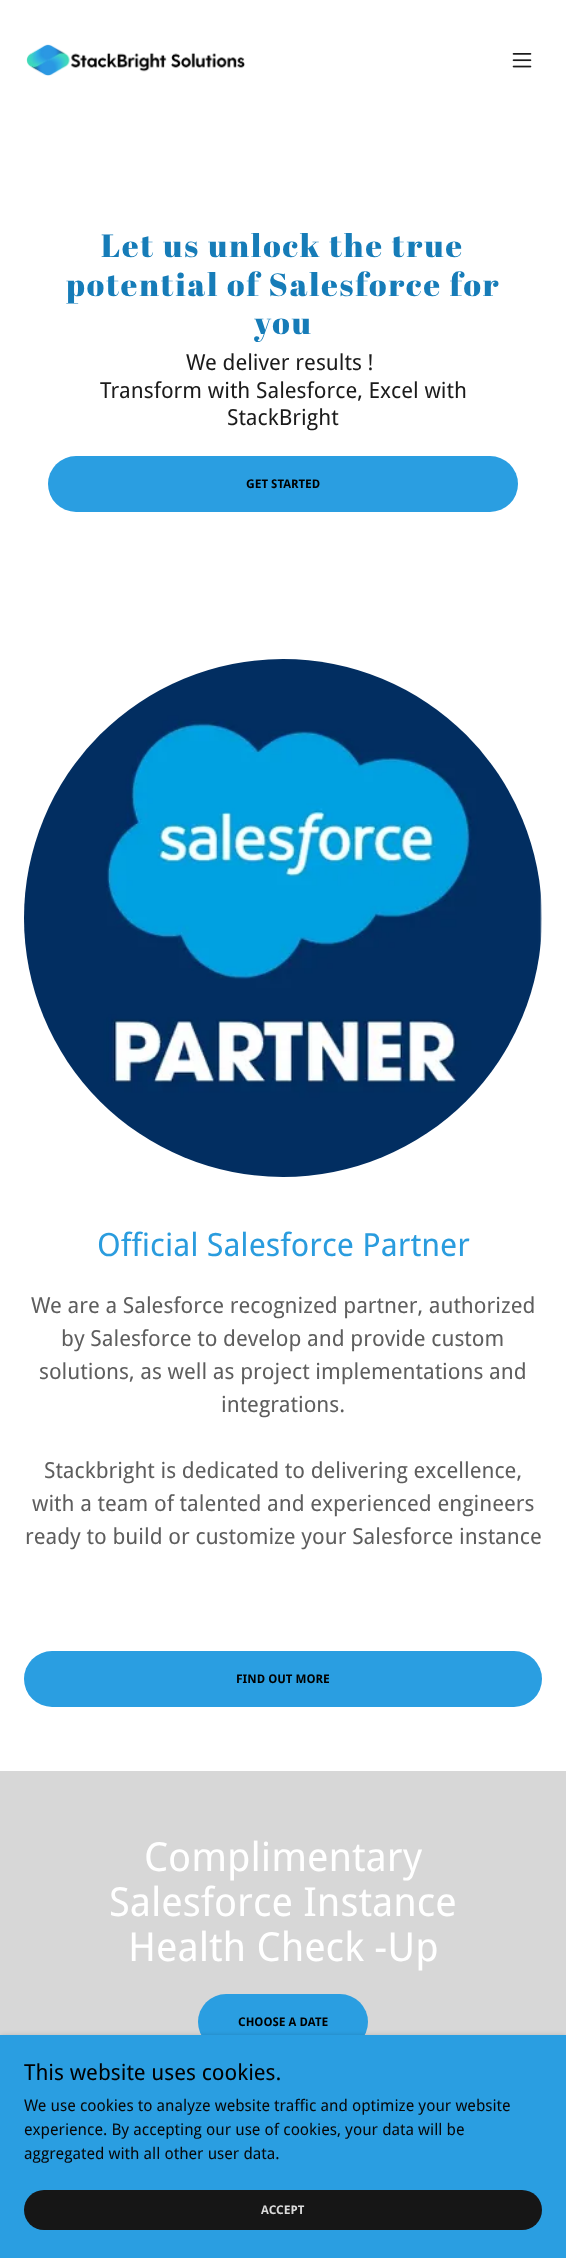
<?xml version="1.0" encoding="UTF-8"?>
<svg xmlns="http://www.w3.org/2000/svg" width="566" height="2258">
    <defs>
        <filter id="blur1" x="-50%" y="-200%" width="200%" height="500%"><feGaussianBlur stdDeviation="3"/></filter>
    </defs>
    <rect width="100%" height="100%" fill="#FFFFFF"/>
    <image x="26" y="44" width="219" height="32" href="img_01.png"/>
    <image x="512" y="53" width="20" height="15" href="img_02.png"/>
    <text x="101" y="257" font-family="Abril Fatface" font-size="32" letter-spacing="2" fill="#167CB8">Let us unlock the true</text>
    <text x="66" y="296" font-family="Abril Fatface" font-size="32" letter-spacing="2" fill="#167CB8">potential of Salesforce for</text>
    <text x="254" y="334" font-family="Abril Fatface" font-size="32" letter-spacing="2" fill="#167CB8">you</text>
    <text x="186" y="370" font-family="Droid Sans" font-size="22" fill="#1B1B1B">We deliver results !</text>
    <text x="100" y="398" font-family="Droid Sans" font-size="22" fill="#1B1B1B">Transform with Salesforce, Excel with</text>
    <text x="227" y="425" font-family="Droid Sans" font-size="22" fill="#1B1B1B">StackBright</text>
    <rect x="48" y="456" width="470" height="56" rx="28" fill="#2A9EE1"/>
    <text x="246" y="488" font-family="Droid Sans" font-size="12" font-weight="700" fill="#000000">GET STARTED</text>
    <image x="24" y="659" width="518" height="518" href="img_03.png"/>
    <text x="97" y="1256" font-family="Droid Sans" font-size="32" fill="#2A9CDE">Official Salesforce Partner</text>
    <text x="31" y="1313" font-family="Droid Sans" font-size="22" fill="#5E5E5E">We are a Salesforce recognized partner, authorized</text>
    <text x="61" y="1346" font-family="Droid Sans" font-size="22" fill="#5E5E5E">by Salesforce to develop and provide custom</text>
    <text x="39" y="1379" font-family="Droid Sans" font-size="22" fill="#5E5E5E">solutions, as well as project implementations and</text>
    <text x="221" y="1412" font-family="Droid Sans" font-size="22" fill="#5E5E5E">integrations.</text>
    <text x="44" y="1478" font-family="Droid Sans" font-size="22" fill="#5E5E5E">Stackbright is dedicated to delivering excellence,</text>
    <text x="32" y="1511" font-family="Droid Sans" font-size="22" fill="#5E5E5E">with a team of talented and experienced engineers</text>
    <text x="25" y="1544" font-family="Droid Sans" font-size="22" fill="#5E5E5E">ready to build or customize your Salesforce instance</text>
    <rect x="24" y="1651" width="518" height="56" rx="28" fill="#2A9EE1"/>
    <text x="236" y="1683" font-family="Droid Sans" font-size="12" font-weight="700" fill="#000000">FIND OUT MORE</text>
    <rect x="0" y="1771" width="566" height="264" fill="#D7D7D7"/>
    <text x="144" y="1871" font-family="Droid Sans" font-size="40" fill="#FFFFFF">Complimentary</text>
    <text x="109" y="1916" font-family="Droid Sans" font-size="40" fill="#FFFFFF">Salesforce Instance</text>
    <text x="128" y="1961" font-family="Droid Sans" font-size="40" fill="#FFFFFF">Health Check -Up</text>
    <rect x="198" y="1994" width="170" height="56" rx="28" fill="#2A9EE1"/>
    <text x="238" y="2026" font-family="Droid Sans" font-size="12" font-weight="700" fill="#000000">CHOOSE A DATE</text>
    <rect x="0" y="2037" width="566" height="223" fill="#000000" fill-opacity="0.3" filter="url(#blur1)"/>
    <rect x="0" y="2035" width="566" height="223" fill="#2A9EE1"/>
    <text x="24" y="2080" font-family="Droid Sans" font-size="22" fill="#000000">This website uses cookies.</text>
    <text font-family="Droid Sans" font-size="16" fill="#070708">
        <tspan x="24" y="2111">We use cookies to analyze website traffic and optimize your website</tspan>
        <tspan x="24" y="2135">experience. By accepting our use of cookies, your data will be</tspan>
        <tspan x="24" y="2159">aggregated with all other user data.</tspan>
    </text>
    <rect x="24" y="2190" width="518" height="40" rx="20" fill="#161616"/>
    <text x="261" y="2214" font-family="Droid Sans" font-size="12" font-weight="700" fill="#DBDBDB">ACCEPT</text>
</svg>
